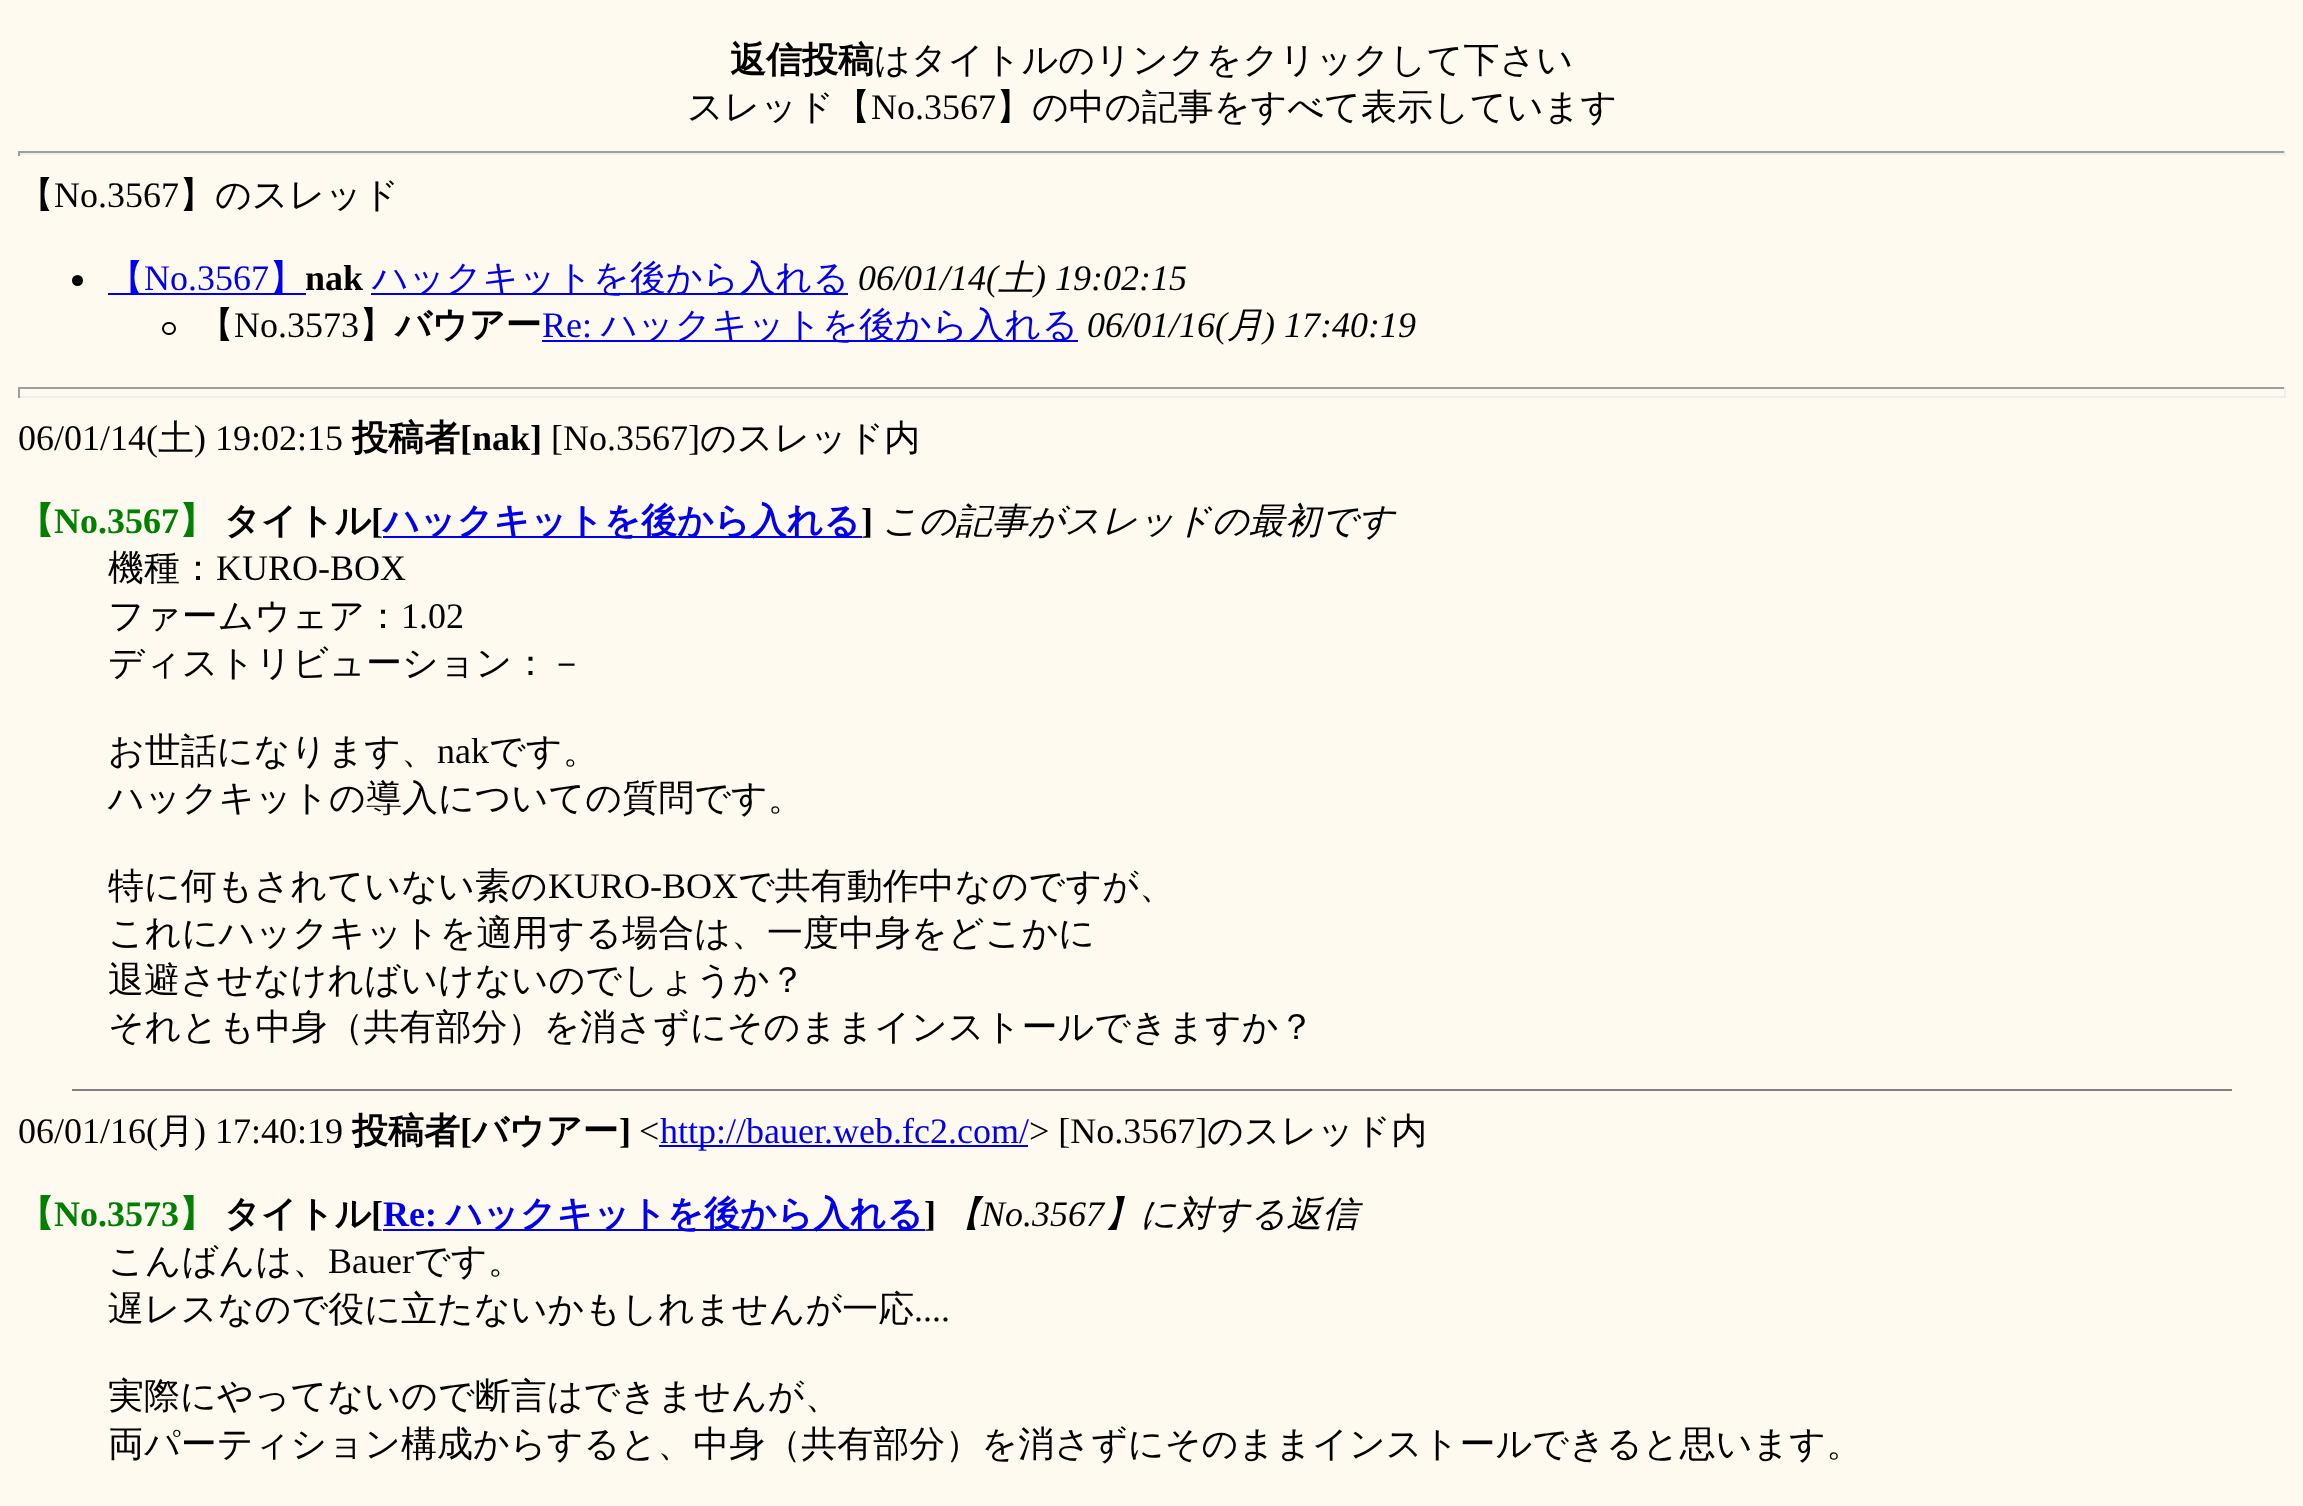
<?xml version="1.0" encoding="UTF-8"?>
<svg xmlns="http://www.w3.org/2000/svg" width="2303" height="1506">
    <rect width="100%" height="100%" fill="#FFFAF0"/>
    <text x="730" y="72" font-family="WenQuanYi Zen Hei" font-size="36" font-weight="700" fill="#000000">返信投稿</text>
    <text x="874" y="72" font-family="WenQuanYi Zen Hei" font-size="36" font-weight="500" fill="#000000">はタイトルのリンクをクリックして下さい</text>
    <text x="687" y="119" font-family="WenQuanYi Zen Hei" font-size="36" font-weight="500" fill="#000000">スレッド【</text>
    <text x="871" y="119" font-family="Liberation Serif" font-size="36" fill="#000000">No.3567</text>
    <text x="996" y="119" font-family="WenQuanYi Zen Hei" font-size="36" font-weight="500" fill="#000000">】の中の記事をすべて表示しています</text>
    <rect x="18" y="151" width="2268" height="2" fill="#9F9F9F"/>
    <rect x="2284" y="151" width="2" height="5" fill="#EEEEEE"/>
    <rect x="18" y="153" width="2268" height="2" fill="#EEEEEE"/>
    <rect x="18" y="151" width="2" height="5" fill="#9F9F9F"/>
    <text x="18" y="207" font-family="WenQuanYi Zen Hei" font-size="36" font-weight="500" fill="#000000">【</text>
    <text x="54" y="207" font-family="Liberation Serif" font-size="36" fill="#000000">No.3567</text>
    <text x="179" y="207" font-family="WenQuanYi Zen Hei" font-size="36" font-weight="500" fill="#000000">】のスレッド</text>
    <circle cx="77.5" cy="280.5" r="5.5" fill="#000000"/>
    <rect x="108" y="293" width="198" height="2" fill="#0000EE"/>
    <text x="108" y="290" font-family="WenQuanYi Zen Hei" font-size="36" font-weight="500" fill="#0000EE">【</text>
    <text x="144" y="290" font-family="Liberation Serif" font-size="36" fill="#0000EE">No.3567</text>
    <text x="269" y="290" font-family="WenQuanYi Zen Hei" font-size="36" font-weight="500" fill="#0000EE">】</text>
    <text x="305" y="290" font-family="Liberation Serif" font-size="36" font-weight="700" fill="#000000">nak</text>
    <rect x="371" y="293" width="477" height="2" fill="#0000EE"/>
    <text x="372" y="290" font-family="WenQuanYi Zen Hei" font-size="36" font-weight="500" fill="#0000EE">ハックキットを後から入れる</text>
    <text x="858" y="290" font-family="Liberation Serif" font-size="36" font-style="italic" fill="#000000">06/01/14(</text>
    <text x="998" y="290" font-family="WenQuanYi Zen Hei" font-size="36" font-weight="500" font-style="italic" fill="#000000">土</text>
    <text x="1034" y="290" font-family="Liberation Serif" font-size="36" font-style="italic" fill="#000000">) 19:02:15</text>
    <rect x="163" y="323" width="12" height="11" rx="5.5" fill="none" stroke="#000000" stroke-width="2"/>
    <text x="198" y="337" font-family="WenQuanYi Zen Hei" font-size="36" font-weight="500" fill="#000000">【</text>
    <text x="234" y="337" font-family="Liberation Serif" font-size="36" fill="#000000">No.3573</text>
    <text x="359" y="337" font-family="WenQuanYi Zen Hei" font-size="36" font-weight="500" fill="#000000">】</text>
    <text x="395" y="337" font-family="WenQuanYi Zen Hei" font-size="36" font-weight="700" fill="#000000">バウアー</text>
    <text x="542" y="337" font-family="Liberation Serif" font-size="36" fill="#0000EE">Re:</text>
    <rect x="542" y="340" width="536" height="2" fill="#0000EE"/>
    <text x="601" y="337" font-family="WenQuanYi Zen Hei" font-size="36" font-weight="500" fill="#0000EE">ハックキットを後から入れる</text>
    <text x="1087" y="337" font-family="Liberation Serif" font-size="36" font-style="italic" fill="#000000">06/01/16(</text>
    <text x="1227" y="337" font-family="WenQuanYi Zen Hei" font-size="36" font-weight="500" font-style="italic" fill="#000000">月</text>
    <text x="1263" y="337" font-family="Liberation Serif" font-size="36" font-style="italic" fill="#000000">) 17:40:19</text>
    <rect x="18" y="387" width="2268" height="2" fill="#9F9F9F"/>
    <rect x="2284" y="387" width="2" height="11" fill="#EEEEEE"/>
    <rect x="18" y="396" width="2268" height="2" fill="#EEEEEE"/>
    <rect x="18" y="387" width="2" height="11" fill="#9F9F9F"/>
    <text x="18" y="450" font-family="Liberation Serif" font-size="36" fill="#000000">06/01/14(</text>
    <text x="158" y="450" font-family="WenQuanYi Zen Hei" font-size="36" font-weight="500" fill="#000000">土</text>
    <text x="194" y="450" font-family="Liberation Serif" font-size="36" fill="#000000">) 19:02:15</text>
    <text x="352" y="450" font-family="WenQuanYi Zen Hei" font-size="36" font-weight="700" fill="#000000">投稿者</text>
    <text x="460" y="450" font-family="Liberation Serif" font-size="36" font-weight="700" fill="#000000">[nak]</text>
    <text x="551" y="450" font-family="Liberation Serif" font-size="36" fill="#000000">[No.3567]</text>
    <text x="700" y="450" font-family="WenQuanYi Zen Hei" font-size="36" font-weight="500" fill="#000000">のスレッド内</text>
    <text x="18" y="533" font-family="WenQuanYi Zen Hei" font-size="36" font-weight="700" fill="#008000">【</text>
    <text x="54" y="533" font-family="Liberation Serif" font-size="36" font-weight="700" fill="#008000">No.3567</text>
    <text x="179" y="533" font-family="WenQuanYi Zen Hei" font-size="36" font-weight="700" fill="#008000">】</text>
    <text x="224" y="533" font-family="WenQuanYi Zen Hei" font-size="36" font-weight="700" fill="#000000">タイトル</text>
    <text x="371" y="533" font-family="Liberation Serif" font-size="36" font-weight="700" fill="#000000">[</text>
    <rect x="383" y="536" width="479" height="2" fill="#0000EE"/>
    <text x="383" y="533" font-family="WenQuanYi Zen Hei" font-size="36" font-weight="700" fill="#0000EE">ハックキットを後から入れる</text>
    <text x="861" y="533" font-family="Liberation Serif" font-size="36" font-weight="700" fill="#000000">]</text>
    <text x="882" y="533" font-family="WenQuanYi Zen Hei" font-size="36" font-weight="500" font-style="italic" fill="#000000">この記事がスレッドの最初です</text>
    <text x="108" y="580" font-family="WenQuanYi Zen Hei" font-size="36" font-weight="500" fill="#000000">機種：</text>
    <text x="216" y="580" font-family="Liberation Serif" font-size="36" fill="#000000">KURO-BOX</text>
    <text x="108" y="628" font-family="WenQuanYi Zen Hei" font-size="36" font-weight="500" fill="#000000">ファームウェア：</text>
    <text x="401" y="628" font-family="Liberation Serif" font-size="36" fill="#000000">1.02</text>
    <text x="108" y="675" font-family="WenQuanYi Zen Hei" font-size="36" font-weight="500" fill="#000000">ディストリビューション：－</text>
    <text x="108" y="763" font-family="WenQuanYi Zen Hei" font-size="36" font-weight="500" fill="#000000">お世話になります、</text>
    <text x="437" y="763" font-family="Liberation Serif" font-size="36" fill="#000000">nak</text>
    <text x="489" y="763" font-family="WenQuanYi Zen Hei" font-size="36" font-weight="500" fill="#000000">です。</text>
    <text x="108" y="810" font-family="WenQuanYi Zen Hei" font-size="36" font-weight="500" fill="#000000">ハックキットの導入についての質問です。</text>
    <text x="108" y="898" font-family="WenQuanYi Zen Hei" font-size="36" font-weight="500" fill="#000000">特に何もされていない素の</text>
    <text x="548" y="898" font-family="Liberation Serif" font-size="36" fill="#000000">KURO-BOX</text>
    <text x="738" y="898" font-family="WenQuanYi Zen Hei" font-size="36" font-weight="500" fill="#000000">で共有動作中なのですが、</text>
    <text font-family="WenQuanYi Zen Hei" font-size="36" font-weight="500" fill="#000000">
        <tspan x="108" y="945">これにハックキットを適用する場合は、一度中身をどこかに</tspan>
        <tspan x="108" y="992">退避させなければいけないのでしょうか？</tspan>
        <tspan x="108" y="1039">それとも中身（共有部分）を消さずにそのままインストールできますか？</tspan>
    </text>
    <rect x="72" y="1089" width="2160" height="2" fill="#808080"/>
    <text x="18" y="1143" font-family="Liberation Serif" font-size="36" fill="#000000">06/01/16(</text>
    <text x="158" y="1143" font-family="WenQuanYi Zen Hei" font-size="36" font-weight="500" fill="#000000">月</text>
    <text x="194" y="1143" font-family="Liberation Serif" font-size="36" fill="#000000">) 17:40:19</text>
    <text x="352" y="1143" font-family="WenQuanYi Zen Hei" font-size="36" font-weight="700" fill="#000000">投稿者</text>
    <text x="460" y="1143" font-family="Liberation Serif" font-size="36" font-weight="700" fill="#000000">[</text>
    <text x="472" y="1143" font-family="WenQuanYi Zen Hei" font-size="36" font-weight="700" fill="#000000">バウアー</text>
    <text x="619" y="1143" font-family="Liberation Serif" font-size="36" font-weight="700" fill="#000000">]</text>
    <text x="639" y="1143" font-family="Liberation Serif" font-size="36" fill="#000000">&lt;</text>
    <rect x="659" y="1145" width="369" height="2" fill="#0000EE"/>
    <text x="660" y="1143" font-family="Liberation Serif" font-size="36" fill="#0000EE">http://bauer.web.fc2.com/</text>
    <text x="1029" y="1143" font-family="Liberation Serif" font-size="36" fill="#000000">&gt; [No.3567]</text>
    <text x="1207" y="1143" font-family="WenQuanYi Zen Hei" font-size="36" font-weight="500" fill="#000000">のスレッド内</text>
    <text x="18" y="1226" font-family="WenQuanYi Zen Hei" font-size="36" font-weight="700" fill="#008000">【</text>
    <text x="54" y="1226" font-family="Liberation Serif" font-size="36" font-weight="700" fill="#008000">No.3573</text>
    <text x="179" y="1226" font-family="WenQuanYi Zen Hei" font-size="36" font-weight="700" fill="#008000">】</text>
    <text x="224" y="1226" font-family="WenQuanYi Zen Hei" font-size="36" font-weight="700" fill="#000000">タイトル</text>
    <text x="371" y="1226" font-family="Liberation Serif" font-size="36" font-weight="700" fill="#000000">[</text>
    <rect x="383" y="1229" width="542" height="2" fill="#0000EE"/>
    <text x="383" y="1226" font-family="Liberation Serif" font-size="36" font-weight="700" fill="#0000EE">Re:</text>
    <text x="446" y="1226" font-family="WenQuanYi Zen Hei" font-size="36" font-weight="700" fill="#0000EE">ハックキットを後から入れる</text>
    <text x="924" y="1226" font-family="Liberation Serif" font-size="36" font-weight="700" fill="#000000">]</text>
    <text x="945" y="1226" font-family="WenQuanYi Zen Hei" font-size="36" font-weight="500" font-style="italic" fill="#000000">【</text>
    <text x="981" y="1226" font-family="Liberation Serif" font-size="36" font-style="italic" fill="#000000">No.3567</text>
    <text x="1104" y="1226" font-family="WenQuanYi Zen Hei" font-size="36" font-weight="500" font-style="italic" fill="#000000">】に対する返信</text>
    <text x="108" y="1273" font-family="WenQuanYi Zen Hei" font-size="36" font-weight="500" fill="#000000">こんばんは、</text>
    <text x="328" y="1273" font-family="Liberation Serif" font-size="36" fill="#000000">Bauer</text>
    <text x="414" y="1273" font-family="WenQuanYi Zen Hei" font-size="36" font-weight="500" fill="#000000">です。</text>
    <text x="108" y="1321" font-family="WenQuanYi Zen Hei" font-size="36" font-weight="500" fill="#000000">遅レスなので役に立たないかもしれませんが一応</text>
    <text x="914" y="1321" font-family="Liberation Serif" font-size="36" fill="#000000">....</text>
    <text font-family="WenQuanYi Zen Hei" font-size="36" font-weight="500" fill="#000000">
        <tspan x="108" y="1408">実際にやってないので断言はできませんが、</tspan>
        <tspan x="108" y="1456">両パーティション構成からすると、中身（共有部分）を消さずにそのままインストールできると思います。</tspan>
    </text>
</svg>
